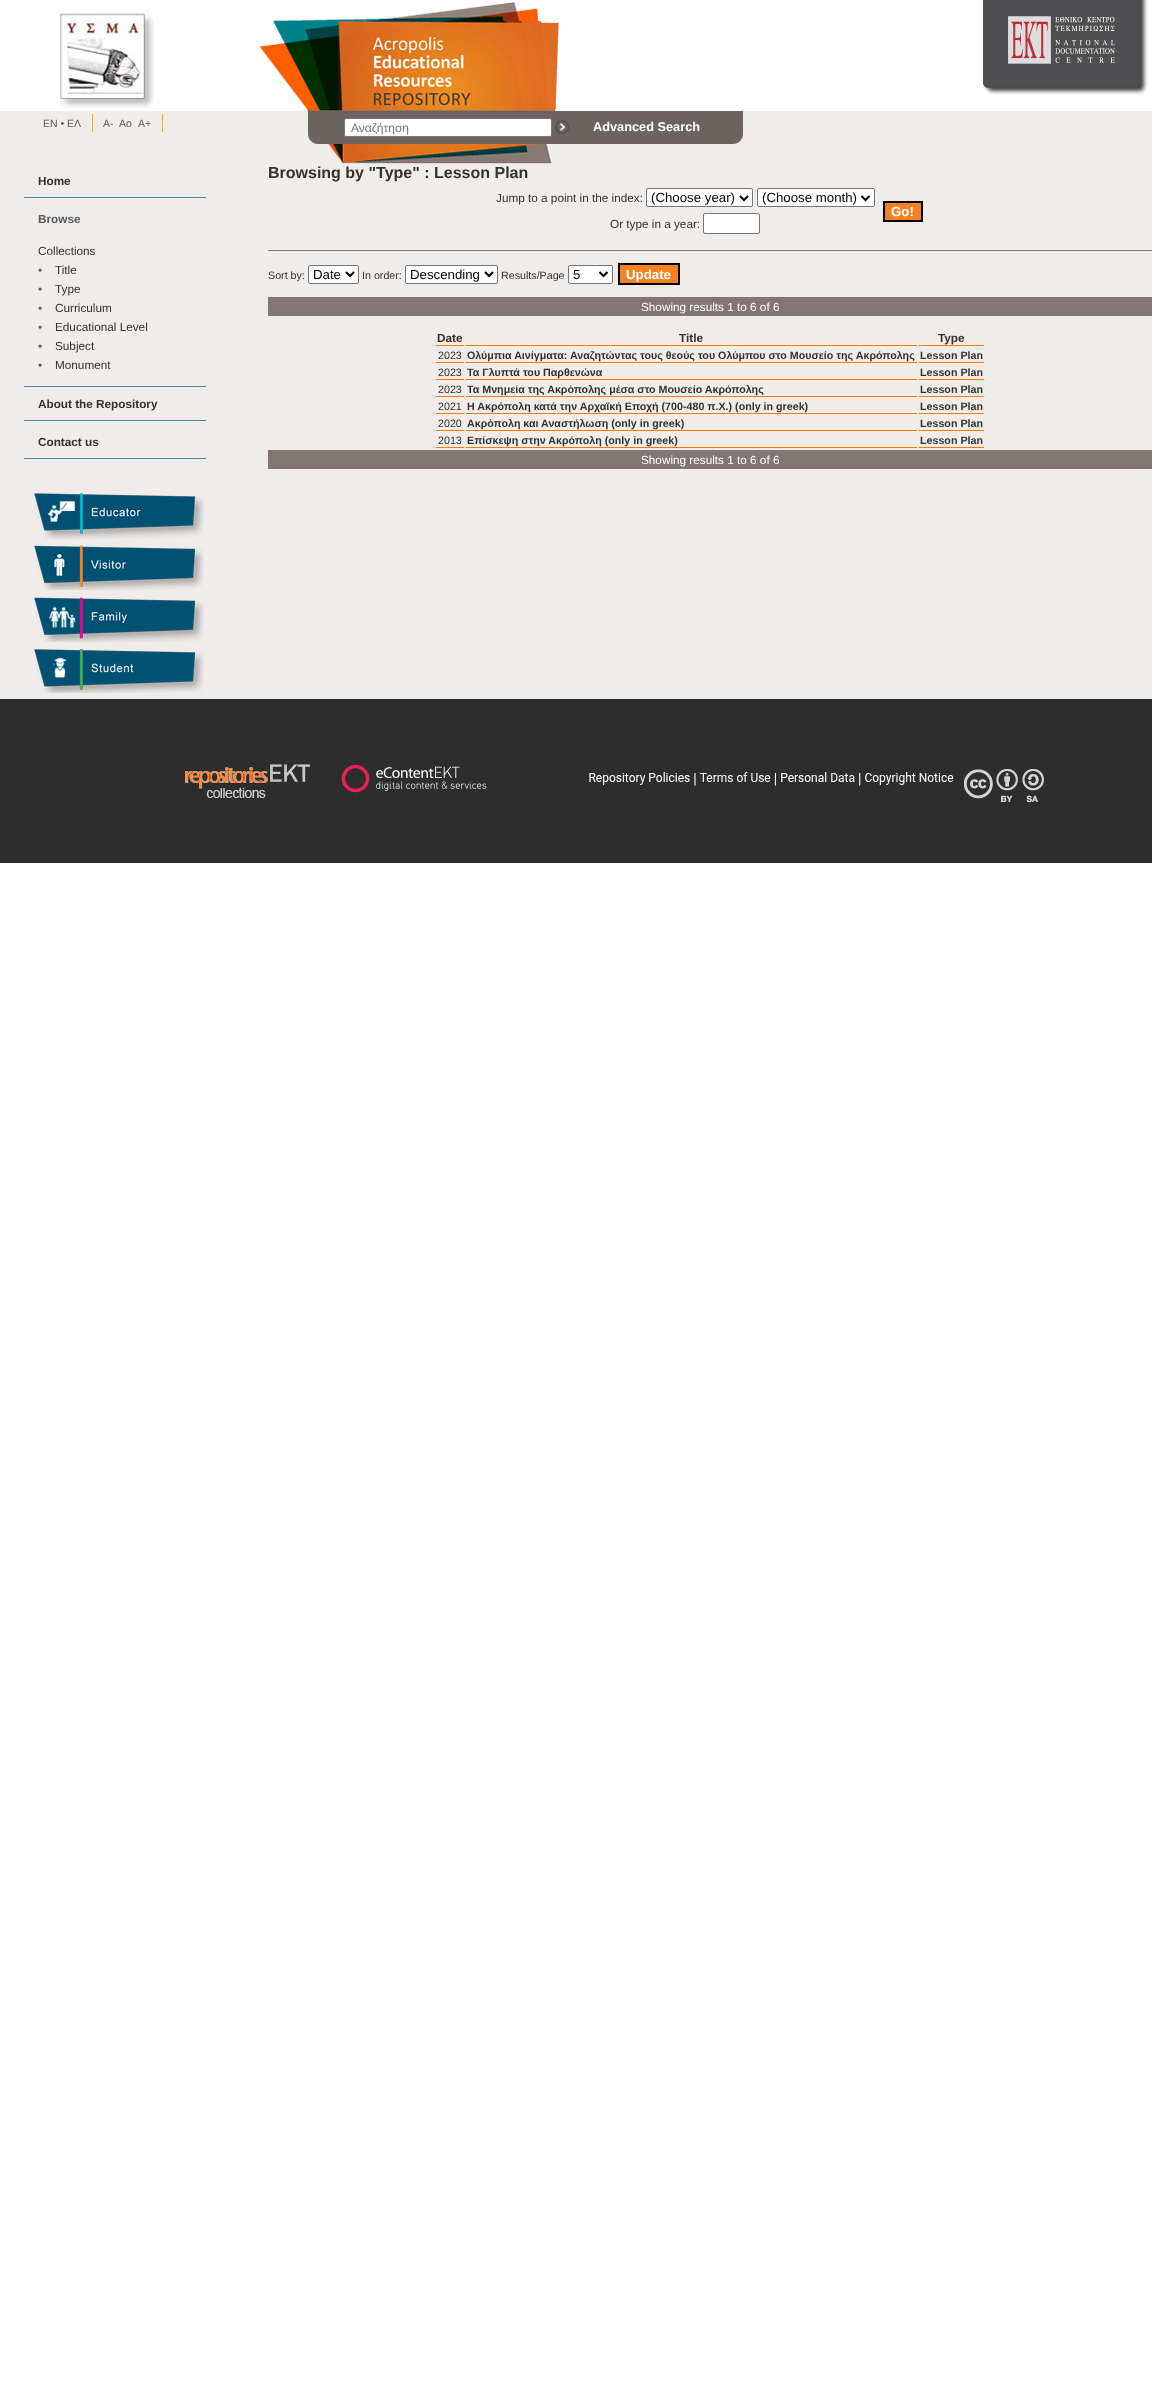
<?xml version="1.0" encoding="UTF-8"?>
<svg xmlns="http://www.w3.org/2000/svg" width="1164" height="2381">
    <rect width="100%" height="100%" fill="#FFFFFF"/>
    <image x="59" y="13" width="95" height="95" href="img_01.png"/>
    <image x="259" y="1" width="300" height="110" href="img_02.png"/>
    <image x="983" y="0" width="165" height="95" href="img_03.png"/>
    <rect x="0" y="111" width="1152" height="53" fill="#EFECEA"/>
    <text x="43" y="127" font-family="Liberation Sans" font-size="10.5" fill="#58595B">EN • EΛ</text>
    <rect x="92" y="114" width="1" height="18" fill="#FBAA26"/>
    <text x="103" y="127" font-family="Liberation Sans" font-size="10.5" fill="#58595B">A-</text>
    <text x="119" y="127" font-family="Liberation Sans" font-size="10.5" fill="#58595B">Ao</text>
    <rect x="162" y="114" width="1" height="18" fill="#FBAA26"/>
    <text x="138" y="127" font-family="Liberation Sans" font-size="10.5" fill="#58595B">A+</text>
    <path d="M 308 111 H 743 V 134 C 743 139.5 738.5 144 733 144 H 318 C 312.5 144 308 139.5 308 134 Z" fill="#6C6361"/>
    <rect x="344.5" y="118.5" width="207" height="18" rx="1.5" fill="#FFFFFF" stroke="#767676"/>
    <text x="351" y="132" font-family="Liberation Sans" font-size="12" fill="#757575">Αναζήτηση</text>
    <image x="555" y="120" width="14" height="14" href="img_04.png"/>
    <text x="593" y="131" font-family="Liberation Sans" font-size="12.75" font-weight="700" fill="#FFFFFF">Advanced Search</text>
    <image x="327" y="144" width="226" height="20" href="img_05.png"/>
    <rect x="0" y="164" width="1152" height="535" fill="#EFECEA"/>
    <text x="38" y="185" font-family="Liberation Sans" font-size="11.75" font-weight="700" fill="#323232">Home</text>
    <rect x="24" y="197" width="182" height="1" fill="#4F879E"/>
    <text x="38" y="223" font-family="Liberation Sans" font-size="11.75" font-weight="700" fill="#58595B">Browse</text>
    <text x="38" y="255" font-family="Liberation Sans" font-size="11.75" fill="#323232">Collections</text>
    <text x="38" y="274" font-family="Liberation Sans" font-size="11.75" fill="#58595B">•</text>
    <text x="55" y="274" font-family="Liberation Sans" font-size="11.75" fill="#323232">Title</text>
    <text x="38" y="293" font-family="Liberation Sans" font-size="11.75" fill="#58595B">•</text>
    <text x="55" y="293" font-family="Liberation Sans" font-size="11.75" fill="#323232">Type</text>
    <text x="38" y="312" font-family="Liberation Sans" font-size="11.75" fill="#58595B">•</text>
    <text x="55" y="312" font-family="Liberation Sans" font-size="11.75" fill="#323232">Curriculum</text>
    <text x="38" y="331" font-family="Liberation Sans" font-size="11.75" fill="#58595B">•</text>
    <text x="55" y="331" font-family="Liberation Sans" font-size="11.75" fill="#323232">Educational Level</text>
    <text x="38" y="350" font-family="Liberation Sans" font-size="11.75" fill="#58595B">•</text>
    <text x="55" y="350" font-family="Liberation Sans" font-size="11.75" fill="#323232">Subject</text>
    <text x="38" y="369" font-family="Liberation Sans" font-size="11.75" fill="#58595B">•</text>
    <text x="55" y="369" font-family="Liberation Sans" font-size="11.75" fill="#323232">Monument</text>
    <rect x="24" y="386" width="182" height="1" fill="#4F879E"/>
    <text x="38" y="408" font-family="Liberation Sans" font-size="11.75" font-weight="700" fill="#323232">About the Repository</text>
    <rect x="24" y="420" width="182" height="1" fill="#4F879E"/>
    <text x="38" y="446" font-family="Liberation Sans" font-size="11.75" font-weight="700" fill="#323232">Contact us</text>
    <rect x="24" y="458" width="182" height="1" fill="#4F879E"/>
    <image x="34" y="493" width="170" height="47" href="img_06.png"/>
    <image x="34" y="545" width="170" height="45" href="img_07.png"/>
    <image x="34" y="597" width="170" height="45" href="img_08.png"/>
    <image x="34" y="649" width="170" height="44" href="img_09.png"/>
    <text x="268" y="178" font-family="Liberation Sans" font-size="16" font-weight="700" fill="#323232">Browsing by "Type" : Lesson Plan</text>
    <text x="496" y="202" font-family="Liberation Sans" font-size="11.75" fill="#323232">Jump to a point in the index:</text>
    <rect x="646.5" y="188.5" width="106" height="18" rx="1.5" fill="#FFFFFF" stroke="#767676"/>
    <path d="M 740 196 L 744 200 L 748 196" fill="none" stroke="#000000" stroke-width="2"/>
    <text x="651" y="202" font-family="Liberation Sans" font-size="13.25" fill="#000000">(Choose year)</text>
    <rect x="757.5" y="188.5" width="117" height="18" rx="1.5" fill="#FFFFFF" stroke="#767676"/>
    <path d="M 861.5 196 L 865.5 200 L 869.5 196" fill="none" stroke="#000000" stroke-width="2"/>
    <text x="762" y="202" font-family="Liberation Sans" font-size="13.25" fill="#000000">(Choose month)</text>
    <rect x="884" y="202" width="38" height="19" fill="#F48222" stroke="#000000" stroke-width="2"/>
    <text x="891" y="216" font-family="Liberation Sans" font-size="13.25" font-weight="700" fill="#FFFFFF">Go!</text>
    <text x="610" y="228" font-family="Liberation Sans" font-size="11.75" fill="#323232">Or type in a year:</text>
    <rect x="703.5" y="213.5" width="56" height="20" rx="1.5" fill="#FFFFFF" stroke="#767676"/>
    <rect x="268" y="250" width="884" height="1" fill="#817674"/>
    <text x="268" y="279" font-family="Liberation Sans" font-size="10.7" fill="#323232">Sort by:</text>
    <rect x="308.5" y="265.5" width="50" height="18" rx="1.5" fill="#FFFFFF" stroke="#767676"/>
    <path d="M 346 272 L 350 276 L 354 272" fill="none" stroke="#000000" stroke-width="2"/>
    <text x="313" y="279" font-family="Liberation Sans" font-size="13.25" fill="#000000">Date</text>
    <text x="362" y="279" font-family="Liberation Sans" font-size="10.7" fill="#323232">In order:</text>
    <rect x="405.5" y="265.5" width="92" height="18" rx="1.5" fill="#FFFFFF" stroke="#767676"/>
    <path d="M 485 272 L 489 276 L 493 272" fill="none" stroke="#000000" stroke-width="2"/>
    <text x="410" y="279" font-family="Liberation Sans" font-size="13.25" fill="#000000">Descending</text>
    <text x="501" y="279" font-family="Liberation Sans" font-size="10.7" fill="#323232">Results/Page</text>
    <rect x="568.5" y="265.5" width="44" height="18" rx="1.5" fill="#FFFFFF" stroke="#767676"/>
    <path d="M 599.5 272 L 603.5 276 L 607.5 272" fill="none" stroke="#000000" stroke-width="2"/>
    <text x="573" y="279" font-family="Liberation Sans" font-size="13.25" fill="#000000">5</text>
    <rect x="619" y="264" width="60" height="20" fill="#F48222" stroke="#000000" stroke-width="2"/>
    <text x="626" y="279" font-family="Liberation Sans" font-size="13.25" font-weight="700" fill="#FFFFFF">Update</text>
    <rect x="268" y="297" width="884" height="19" fill="#817674"/>
    <text x="641" y="311" font-family="Liberation Sans" font-size="11.75" fill="#FFFFFF">Showing results 1 to 6 of 6</text>
    <rect x="436" y="345" width="28" height="1" fill="#F57B06"/>
    <text x="437" y="342" font-family="Liberation Sans" font-size="11.75" font-weight="700" fill="#323232">Date</text>
    <rect x="466" y="345" width="451" height="1" fill="#F57B06"/>
    <text x="679" y="342" font-family="Liberation Sans" font-size="11.75" font-weight="700" fill="#323232">Title</text>
    <rect x="919" y="345" width="65" height="1" fill="#F57B06"/>
    <text x="938" y="342" font-family="Liberation Sans" font-size="11.75" font-weight="700" fill="#323232">Type</text>
    <rect x="436" y="362" width="28" height="1" fill="#F57B06"/>
    <text x="438" y="359" font-family="Liberation Sans" font-size="10.7" fill="#323232">2023</text>
    <rect x="466" y="362" width="451" height="1" fill="#F57B06"/>
    <text x="467" y="359" font-family="Liberation Sans" font-size="10.7" font-weight="700" fill="#323232">Ολύμπια Αινίγματα: Αναζητώντας τους θεούς του Ολύμπου στο Μουσείο της Ακρόπολης</text>
    <rect x="919" y="362" width="65" height="1" fill="#F57B06"/>
    <text x="920" y="359" font-family="Liberation Sans" font-size="10.7" font-weight="700" fill="#323232">Lesson Plan</text>
    <rect x="436" y="379" width="28" height="1" fill="#F57B06"/>
    <text x="438" y="376" font-family="Liberation Sans" font-size="10.7" fill="#323232">2023</text>
    <rect x="466" y="379" width="451" height="1" fill="#F57B06"/>
    <text x="467" y="376" font-family="Liberation Sans" font-size="10.7" font-weight="700" fill="#323232">Τα Γλυπτά του Παρθενώνα</text>
    <rect x="919" y="379" width="65" height="1" fill="#F57B06"/>
    <text x="920" y="376" font-family="Liberation Sans" font-size="10.7" font-weight="700" fill="#323232">Lesson Plan</text>
    <rect x="436" y="396" width="28" height="1" fill="#F57B06"/>
    <text x="438" y="393" font-family="Liberation Sans" font-size="10.7" fill="#323232">2023</text>
    <rect x="466" y="396" width="451" height="1" fill="#F57B06"/>
    <text x="467" y="393" font-family="Liberation Sans" font-size="10.7" font-weight="700" fill="#323232">Τα Μνημεία της Ακρόπολης μέσα στο Μουσείο Ακρόπολης</text>
    <rect x="919" y="396" width="65" height="1" fill="#F57B06"/>
    <text x="920" y="393" font-family="Liberation Sans" font-size="10.7" font-weight="700" fill="#323232">Lesson Plan</text>
    <rect x="436" y="413" width="28" height="1" fill="#F57B06"/>
    <text x="438" y="410" font-family="Liberation Sans" font-size="10.7" fill="#323232">2021</text>
    <rect x="466" y="413" width="451" height="1" fill="#F57B06"/>
    <text x="467" y="410" font-family="Liberation Sans" font-size="10.7" font-weight="700" fill="#323232">Η Ακρόπολη κατά την Αρχαϊκή Εποχή (700-480 π.Χ.) (only in greek)</text>
    <rect x="919" y="413" width="65" height="1" fill="#F57B06"/>
    <text x="920" y="410" font-family="Liberation Sans" font-size="10.7" font-weight="700" fill="#323232">Lesson Plan</text>
    <rect x="436" y="430" width="28" height="1" fill="#F57B06"/>
    <text x="438" y="427" font-family="Liberation Sans" font-size="10.7" fill="#323232">2020</text>
    <rect x="466" y="430" width="451" height="1" fill="#F57B06"/>
    <text x="467" y="427" font-family="Liberation Sans" font-size="10.7" font-weight="700" fill="#323232">Ακρόπολη και Αναστήλωση (only in greek)</text>
    <rect x="919" y="430" width="65" height="1" fill="#F57B06"/>
    <text x="920" y="427" font-family="Liberation Sans" font-size="10.7" font-weight="700" fill="#323232">Lesson Plan</text>
    <rect x="436" y="447" width="28" height="1" fill="#F57B06"/>
    <text x="438" y="444" font-family="Liberation Sans" font-size="10.7" fill="#323232">2013</text>
    <rect x="466" y="447" width="451" height="1" fill="#F57B06"/>
    <text x="467" y="444" font-family="Liberation Sans" font-size="10.7" font-weight="700" fill="#323232">Επίσκεψη στην Ακρόπολη (only in greek)</text>
    <rect x="919" y="447" width="65" height="1" fill="#F57B06"/>
    <text x="920" y="444" font-family="Liberation Sans" font-size="10.7" font-weight="700" fill="#323232">Lesson Plan</text>
    <rect x="268" y="450" width="884" height="19" fill="#817674"/>
    <text x="641" y="464" font-family="Liberation Sans" font-size="11.75" fill="#FFFFFF">Showing results 1 to 6 of 6</text>
    <image x="0" y="699" width="1152" height="164" href="img_10.png"/>
</svg>
